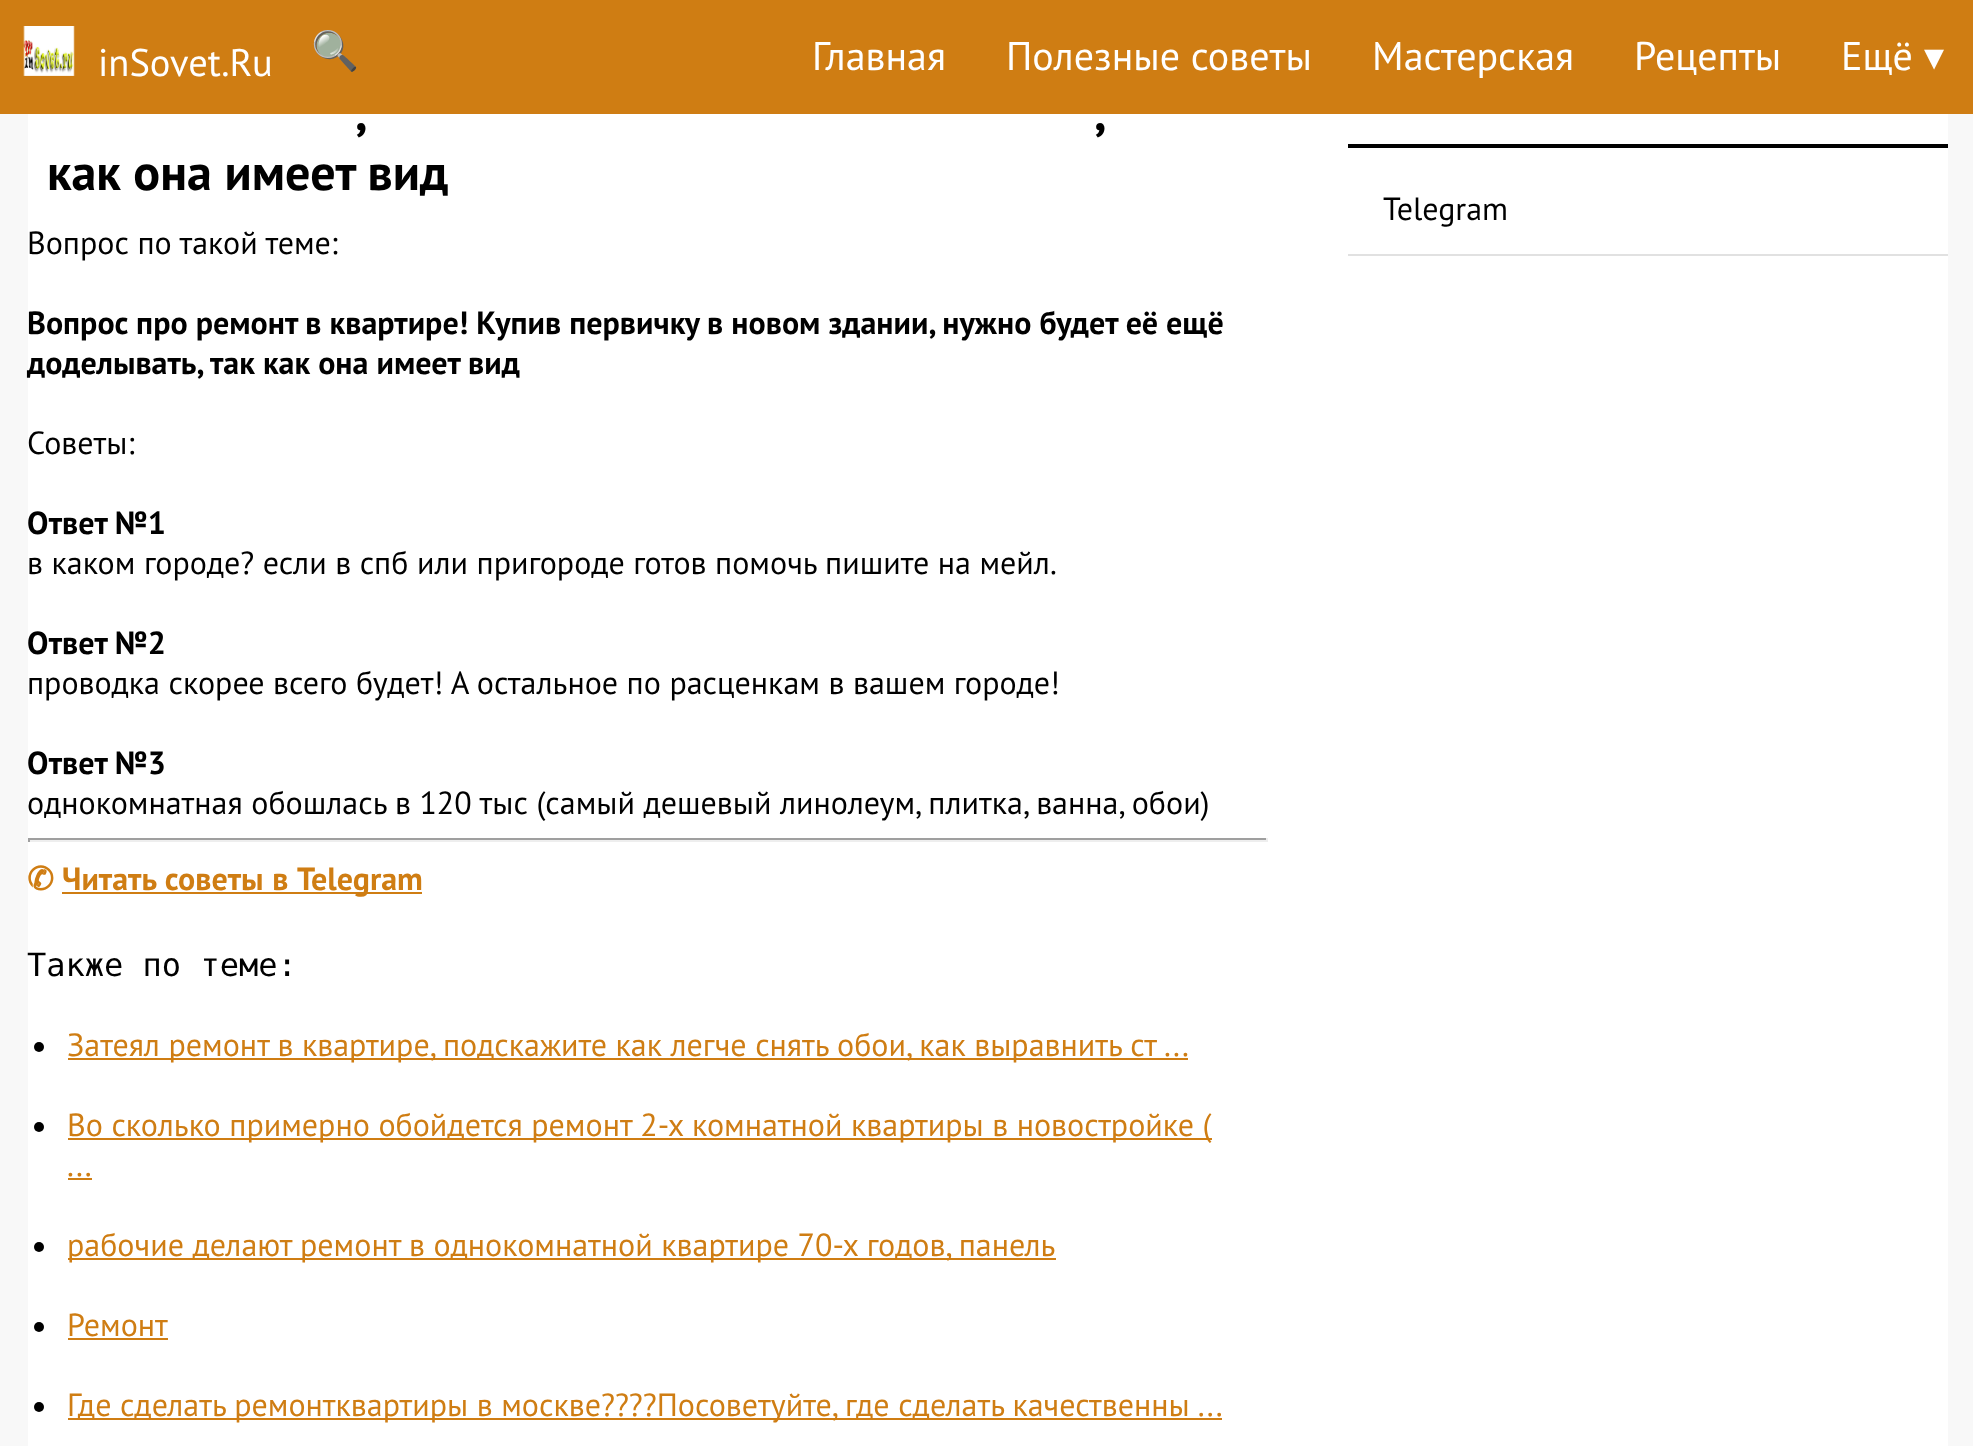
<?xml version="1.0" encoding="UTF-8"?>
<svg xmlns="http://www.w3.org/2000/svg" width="1973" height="1446">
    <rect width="100%" height="100%" fill="#F8F8F8"/>
    <rect x="0" y="0" width="1973" height="114" fill="#CF7D13"/>
    <image x="23" y="26" width="52" height="50" href="img_01.png"/>
    <text x="98" y="76" font-family="PT Sans" font-size="38.5" fill="#FFFFFF">inSovet.Ru</text>
    <text x="311" y="64" font-family="Noto Color Emoji" font-size="38.5" fill="#FFFFFF">🔍</text>
    <text x="812" y="70" font-family="PT Sans" font-size="40" fill="#FFFFFF">Главная</text>
    <text x="1006" y="70" font-family="PT Sans" font-size="40" fill="#FFFFFF">Полезные советы</text>
    <text x="1372" y="70" font-family="PT Sans" font-size="40" fill="#FFFFFF">Мастерская</text>
    <text x="1634" y="70" font-family="PT Sans" font-size="40" fill="#FFFFFF">Рецепты</text>
    <text x="1841" y="70" font-family="PT Sans" font-size="40" fill="#FFFFFF">Ещё</text>
    <text x="1924" y="70" font-family="DejaVu Sans" font-size="40" fill="#FFFFFF">▾</text>
    <rect x="28" y="114" width="1920" height="1332" fill="#FFFFFF"/>
    <text x="355" y="130" font-family="PT Sans" font-size="50" font-weight="700" fill="#000000">,</text>
    <text x="1094" y="130" font-family="PT Sans" font-size="50" font-weight="700" fill="#000000">,</text>
    <text x="47" y="190" font-family="PT Sans" font-size="50" font-weight="700" fill="#000000">как она имеет вид</text>
    <text x="27" y="254" font-family="PT Sans" font-size="32" fill="#000000">Вопрос по такой теме:</text>
    <text font-family="PT Sans" font-size="32" font-weight="700" fill="#000000">
        <tspan x="27" y="334">Вопрос про ремонт в квартире! Купив первичку в новом здании, нужно будет её ещё</tspan>
        <tspan x="27" y="374">доделывать, так как она имеет вид</tspan>
    </text>
    <text x="27" y="454" font-family="PT Sans" font-size="32" fill="#000000">Советы:</text>
    <text x="27" y="534" font-family="PT Sans" font-size="32" font-weight="700" fill="#000000">Ответ №1</text>
    <text x="27" y="574" font-family="PT Sans" font-size="32" fill="#000000">в каком городе? если в спб или пригороде готов помочь пишите на мейл.</text>
    <text x="27" y="654" font-family="PT Sans" font-size="32" font-weight="700" fill="#000000">Ответ №2</text>
    <text x="27" y="694" font-family="PT Sans" font-size="32" fill="#000000">проводка скорее всего будет! А остальное по расценкам в вашем городе!</text>
    <text x="27" y="774" font-family="PT Sans" font-size="32" font-weight="700" fill="#000000">Ответ №3</text>
    <text x="27" y="814" font-family="PT Sans" font-size="32" fill="#000000">однокомнатная обошлась в 120 тыс (самый дешевый линолеум, плитка, ванна, обои)</text>
    <rect x="28" y="838" width="1240" height="2" fill="#9F9F9F"/>
    <rect x="1266" y="838" width="2" height="4" fill="#EEEEEE"/>
    <rect x="28" y="840" width="1240" height="2" fill="#EEEEEE"/>
    <rect x="28" y="838" width="2" height="4" fill="#9F9F9F"/>
    <text x="27" y="890" font-family="DejaVu Sans" font-size="32" font-weight="700" fill="#CF7D13">✆</text>
    <rect x="62" y="892" width="360" height="2" fill="#CF7D13"/>
    <text x="62" y="890" word-spacing="0.5" font-family="PT Sans" font-size="32" font-weight="700" fill="#CF7D13">Читать советы в Telegram</text>
    <text x="27" y="976" font-family="DejaVu Sans Mono" font-size="32" fill="#000000">Также по теме:</text>
    <circle cx="39" cy="1047" r="5" fill="#000000"/>
    <rect x="68" y="1058" width="1120" height="2" fill="#CF7D13"/>
    <text x="67" y="1056" font-family="PT Sans" font-size="32" fill="#CF7D13">Затеял ремонт в квартире, подскажите как легче снять обои, как выравнить ст ...</text>
    <circle cx="39" cy="1127" r="5" fill="#000000"/>
    <rect x="68" y="1138" width="1144" height="2" fill="#CF7D13"/>
    <text font-family="PT Sans" font-size="32" fill="#CF7D13">
        <tspan x="67" y="1136">Во сколько примерно обойдется ремонт 2-х комнатной квартиры в новостройке (</tspan>
        <tspan x="67" y="1176">...</tspan>
    </text>
    <rect x="68" y="1178" width="24" height="2" fill="#CF7D13"/>
    <circle cx="39" cy="1247" r="5" fill="#000000"/>
    <rect x="68" y="1258" width="988" height="2" fill="#CF7D13"/>
    <text x="67" y="1256" font-family="PT Sans" font-size="32" fill="#CF7D13">рабочие делают ремонт в однокомнатной квартире 70-х годов, панель</text>
    <circle cx="39" cy="1327" r="5" fill="#000000"/>
    <text x="67" y="1336" font-family="PT Sans" font-size="32" fill="#CF7D13">Ремонт</text>
    <rect x="68" y="1338" width="100" height="2" fill="#CF7D13"/>
    <circle cx="39" cy="1407" r="5" fill="#000000"/>
    <rect x="68" y="1418" width="1154" height="2" fill="#CF7D13"/>
    <text x="67" y="1416" font-family="PT Sans" font-size="32" fill="#CF7D13">Где сделать ремонтквартиры в москве????Посоветуйте, где сделать качественны ...</text>
    <rect x="1348" y="144" width="600" height="4" fill="#000000"/>
    <rect x="1348" y="254" width="600" height="2" fill="#E1E1E1"/>
    <text x="1383" y="220" font-family="PT Sans" font-size="32" fill="#000000">Telegram</text>
</svg>
